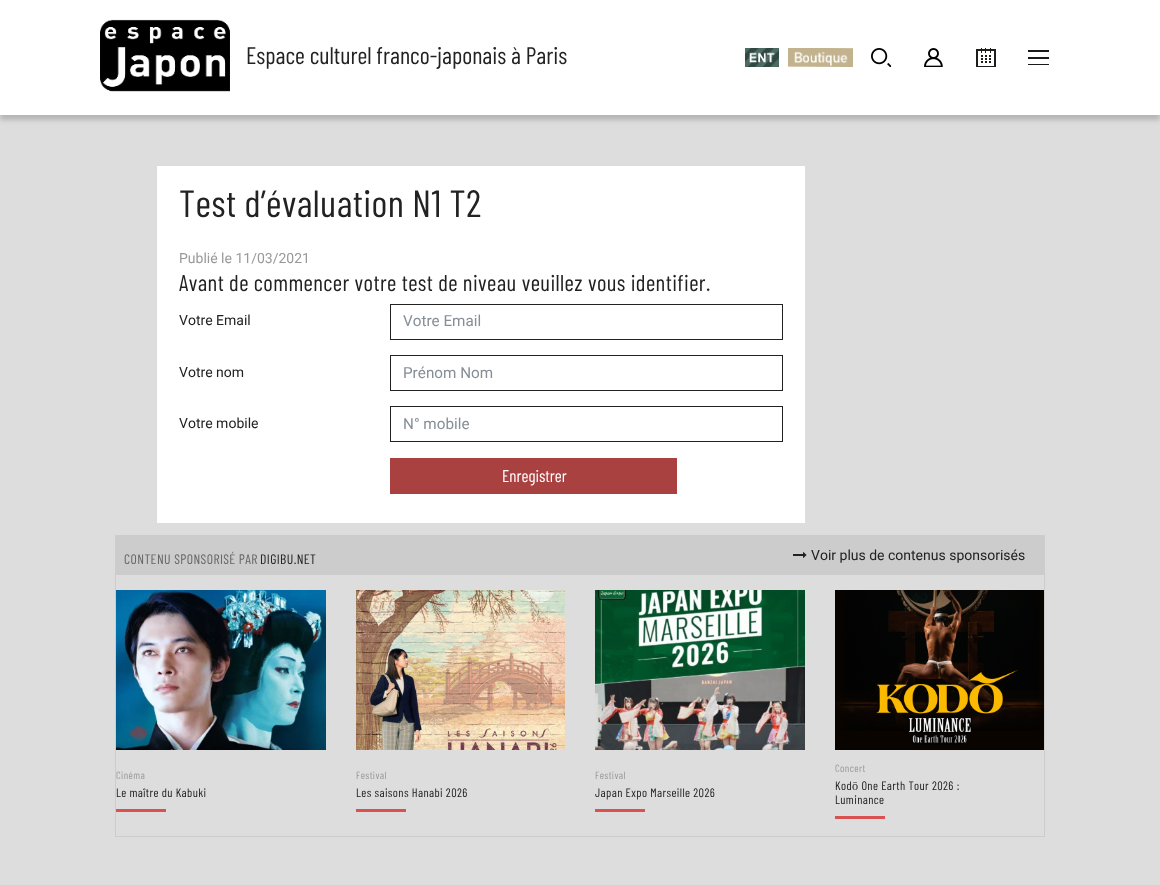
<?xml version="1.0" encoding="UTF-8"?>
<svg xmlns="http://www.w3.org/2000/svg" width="1160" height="885">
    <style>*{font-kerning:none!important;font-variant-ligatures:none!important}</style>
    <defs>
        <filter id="blur1" x="-50%" y="-200%" width="200%" height="500%"><feGaussianBlur stdDeviation="2.5"/></filter>
    </defs>
    <rect width="100%" height="100%" fill="#DDDDDD"/>
    <rect x="0" y="5" width="1160" height="115" fill="#000000" fill-opacity="0.18" filter="url(#blur1)"/>
    <rect x="0" y="0" width="1160" height="115" fill="#FFFFFF"/>
    <image x="100" y="19" width="130" height="73" href="img_01.png"/>
    <text x="246" y="64" font-family="Barlow Condensed" font-size="24" fill="#222222">Espace culturel franco-japonais à Paris</text>
    <image x="745" y="48" width="34" height="19" href="img_02.png"/>
    <image x="788" y="48" width="65" height="19" href="img_03.png"/>
    <image x="871" y="48" width="20" height="19" href="img_04.png"/>
    <image x="924" y="48" width="19" height="19" href="img_05.png"/>
    <image x="976" y="48" width="20" height="19" href="img_06.png"/>
    <rect x="1028" y="50" width="21" height="2" fill="#1A1A1A"/>
    <rect x="1028" y="57" width="21" height="2" fill="#1A1A1A"/>
    <rect x="1028" y="64" width="21" height="1" fill="#1A1A1A"/>
    <rect x="157" y="166" width="648" height="357" fill="#FFFFFF"/>
    <text x="179" y="217" font-family="Barlow Condensed" font-size="38" letter-spacing="0.4" fill="#222222">Test d’évaluation N1 T2</text>
    <text x="179" y="263" font-family="Roboto" font-size="14" fill="#999999">Publié le 11/03/2021</text>
    <text x="179" y="291" font-family="Barlow Condensed" font-size="22.8" letter-spacing="0.4" fill="#222222">Avant de commencer votre test de niveau veuillez vous identifier.</text>
    <text x="179" y="325" font-family="Roboto" font-size="14" fill="#222222">Votre Email</text>
    <rect x="390.5" y="304.5" width="392" height="35" fill="none" stroke="#222222"/>
    <text x="403" y="326" font-family="Roboto" font-size="15.25" fill="#868E96">Votre Email</text>
    <text x="179" y="377" font-family="Roboto" font-size="14" fill="#222222">Votre nom</text>
    <rect x="390.5" y="355.5" width="392" height="35" fill="none" stroke="#222222"/>
    <text x="403" y="378" font-family="Roboto" font-size="15.25" fill="#868E96">Prénom Nom</text>
    <text x="179" y="428" font-family="Roboto" font-size="14" fill="#222222">Votre mobile</text>
    <rect x="390.5" y="406.5" width="392" height="35" fill="none" stroke="#222222"/>
    <text x="403" y="429" font-family="Roboto" font-size="15.25" fill="#868E96">N° mobile</text>
    <rect x="390" y="458" width="287" height="36" fill="#AA4141"/>
    <text x="502" y="482" font-family="Barlow Condensed" font-size="17" fill="#FFFFFF">Enregistrer</text>
    <rect x="115.5" y="535.5" width="929" height="301" fill="none" stroke="#CCCCCC"/>
    <rect x="116" y="536" width="928" height="39" fill="#CCCCCC"/>
    <text x="124" y="564" font-family="Barlow Condensed" font-size="13.75" letter-spacing="0.4" fill="#666666">CONTENU SPONSORISÉ PAR</text>
    <text x="260" y="564" font-family="Barlow Condensed" font-size="13.75" letter-spacing="0.4" fill="#222222">DIGIBU.NET</text>
    <image x="793" y="552" width="14" height="6" href="img_07.png"/>
    <text x="811" y="560" font-family="Roboto" font-size="14" fill="#222222">Voir plus de contenus sponsorisés</text>
    <image x="116" y="590" width="210" height="160" href="img_08.png"/>
    <text x="116" y="779" font-family="Barlow Condensed" font-size="10.5" letter-spacing="0.4" fill="#999999">Cinéma</text>
    <text x="116" y="797" font-family="Barlow Condensed" font-size="12.25" letter-spacing="0.4" fill="#222222">Le maître du Kabuki</text>
    <rect x="116" y="809" width="50" height="3" fill="#D95251"/>
    <image x="356" y="590" width="209" height="160" href="img_09.png"/>
    <text x="356" y="779" font-family="Barlow Condensed" font-size="10.5" letter-spacing="0.4" fill="#999999">Festival</text>
    <text x="356" y="797" font-family="Barlow Condensed" font-size="12.25" letter-spacing="0.4" fill="#222222">Les saisons Hanabi 2026</text>
    <rect x="356" y="809" width="50" height="3" fill="#D95251"/>
    <image x="595" y="590" width="210" height="160" href="img_10.png"/>
    <text x="595" y="779" font-family="Barlow Condensed" font-size="10.5" letter-spacing="0.4" fill="#999999">Festival</text>
    <text x="595" y="797" font-family="Barlow Condensed" font-size="12.25" letter-spacing="0.4" fill="#222222">Japan Expo Marseille 2026</text>
    <rect x="595" y="809" width="50" height="3" fill="#D95251"/>
    <image x="835" y="590" width="209" height="160" href="img_11.png"/>
    <text x="835" y="772" font-family="Barlow Condensed" font-size="10.5" letter-spacing="0.4" fill="#999999">Concert</text>
    <text font-family="Barlow Condensed" font-size="12.25" letter-spacing="0.4" fill="#222222">
        <tspan x="835" y="790">Kodō One Earth Tour 2026 :</tspan>
        <tspan x="835" y="804">Luminance</tspan>
    </text>
    <rect x="835" y="816" width="50" height="3" fill="#D95251"/>
</svg>
